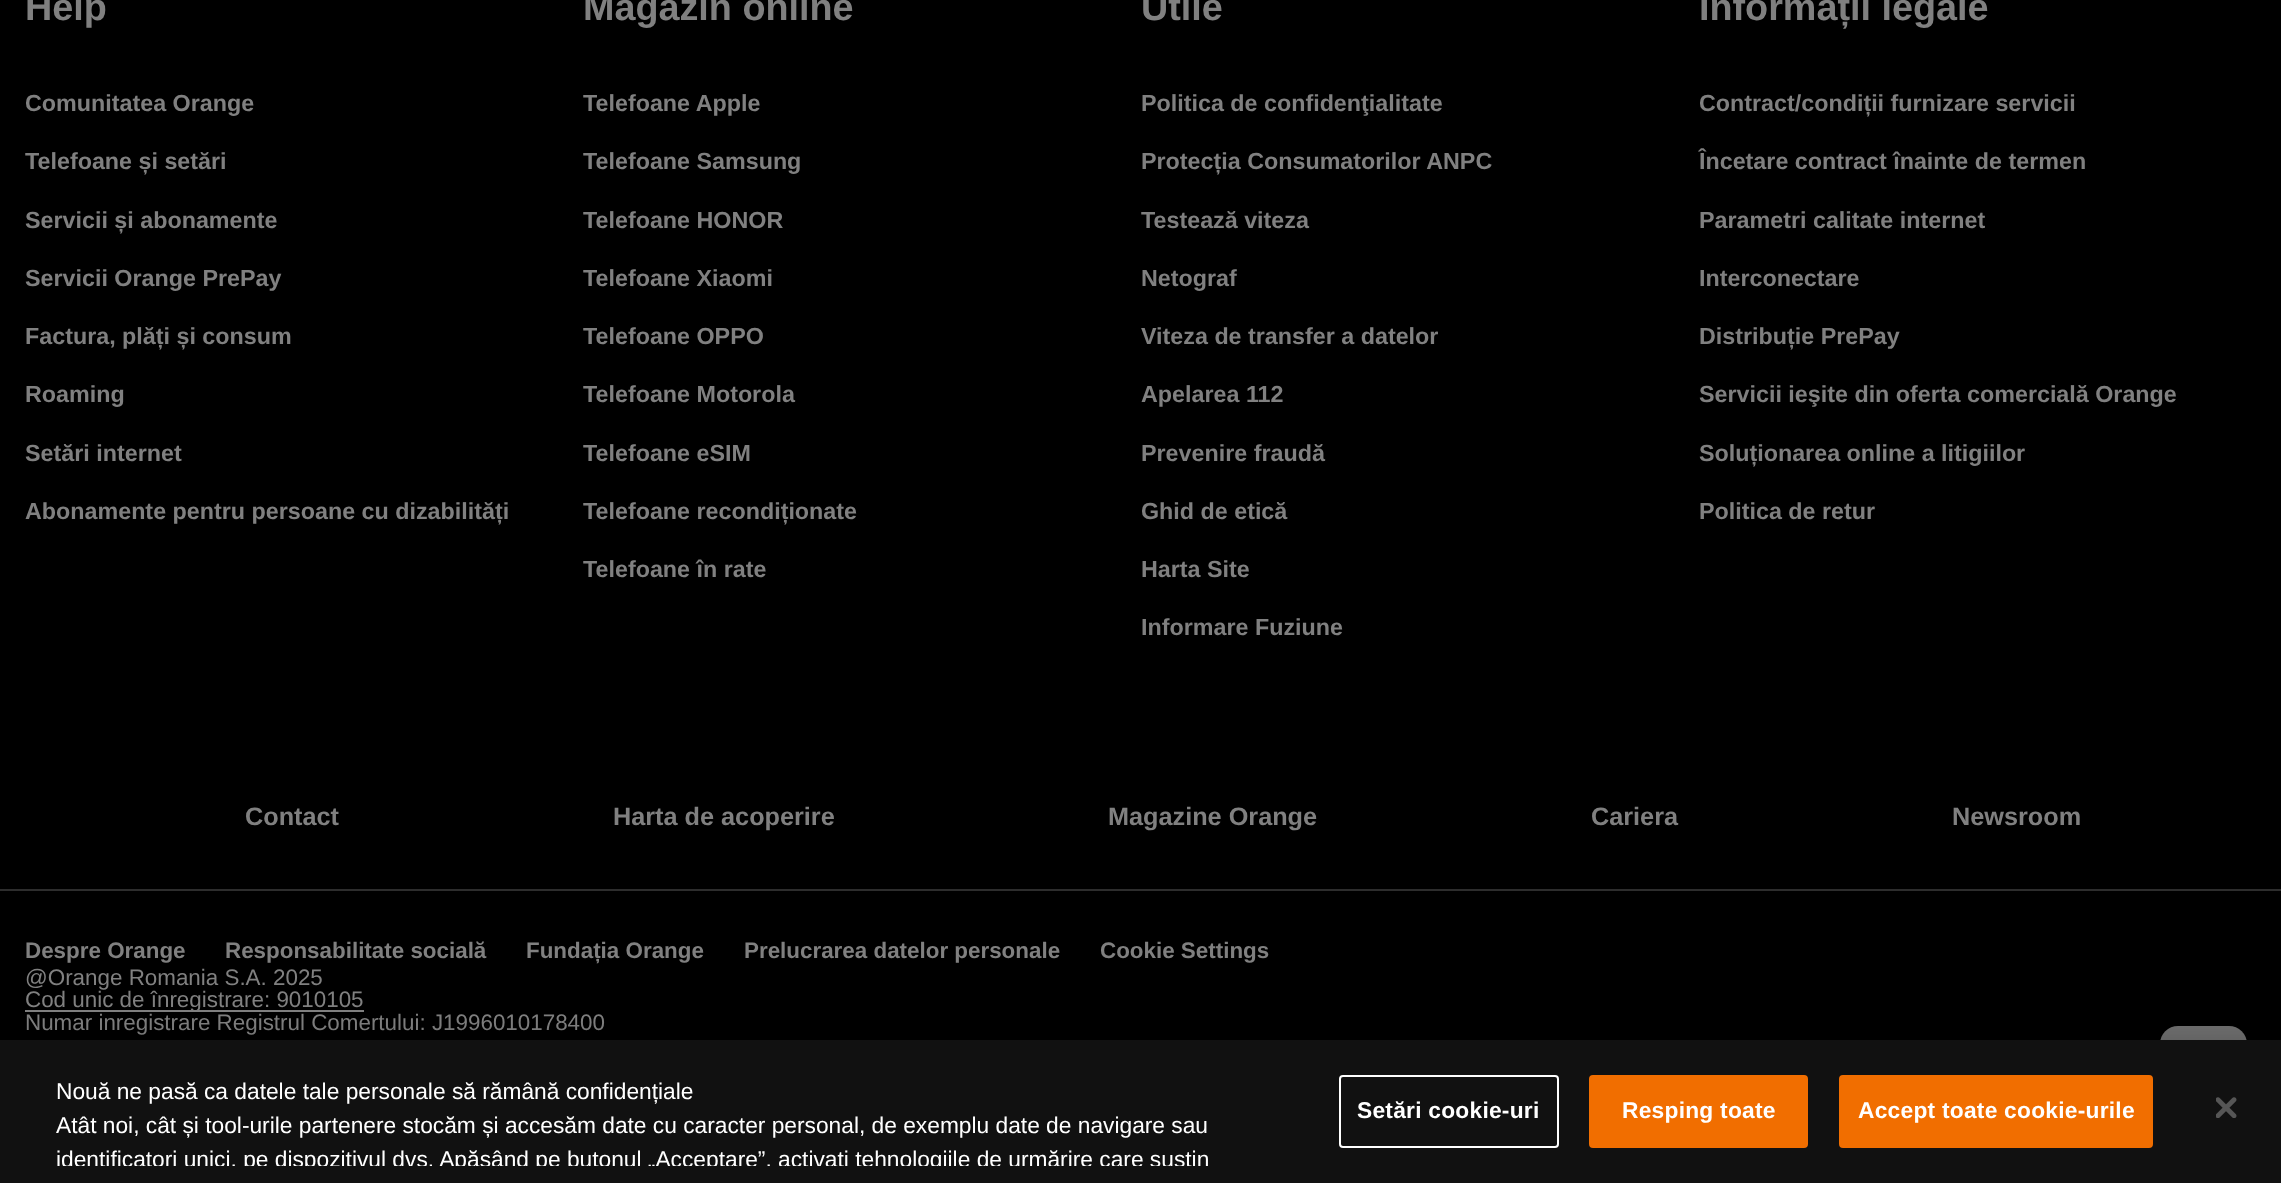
<?xml version="1.0" encoding="UTF-8"?>
<svg xmlns="http://www.w3.org/2000/svg" width="2281" height="1183">
    <defs>
        <filter id="blur1" x="-50%" y="-200%" width="200%" height="500%"><feGaussianBlur stdDeviation="16"/></filter>
        <clipPath id="clip1"><rect x="56" y="1075" width="1199" height="91"/></clipPath>
    </defs>
    <rect width="100%" height="100%" fill="#000000"/>
    <rect x="0" y="889" width="2281" height="2" fill="#2D2D2D"/>
    <text x="25" y="20" font-family="Liberation Sans" font-size="37.75" font-weight="700" fill="#808080">Help</text>
    <text x="25" y="111" font-family="Liberation Sans" font-size="23.3" font-weight="700" fill="#808080">Comunitatea Orange</text>
    <text x="25" y="169" font-family="Liberation Sans" font-size="23.3" font-weight="700" fill="#808080">Telefoane și setări</text>
    <text x="25" y="228" font-family="Liberation Sans" font-size="23.3" font-weight="700" fill="#808080">Servicii și abonamente</text>
    <text x="25" y="286" font-family="Liberation Sans" font-size="23.3" font-weight="700" fill="#808080">Servicii Orange PrePay</text>
    <text x="25" y="344" font-family="Liberation Sans" font-size="23.3" font-weight="700" fill="#808080">Factura, plăți și consum</text>
    <text x="25" y="402" font-family="Liberation Sans" font-size="23.3" font-weight="700" fill="#808080">Roaming</text>
    <text x="25" y="461" font-family="Liberation Sans" font-size="23.3" font-weight="700" fill="#808080">Setări internet</text>
    <text x="25" y="519" font-family="Liberation Sans" font-size="23.3" font-weight="700" fill="#808080">Abonamente pentru persoane cu dizabilități</text>
    <text x="583" y="20" font-family="Liberation Sans" font-size="37.75" font-weight="700" fill="#808080">Magazin online</text>
    <text x="583" y="111" font-family="Liberation Sans" font-size="23.3" font-weight="700" fill="#808080">Telefoane Apple</text>
    <text x="583" y="169" font-family="Liberation Sans" font-size="23.3" font-weight="700" fill="#808080">Telefoane Samsung</text>
    <text x="583" y="228" font-family="Liberation Sans" font-size="23.3" font-weight="700" fill="#808080">Telefoane HONOR</text>
    <text x="583" y="286" font-family="Liberation Sans" font-size="23.3" font-weight="700" fill="#808080">Telefoane Xiaomi</text>
    <text x="583" y="344" font-family="Liberation Sans" font-size="23.3" font-weight="700" fill="#808080">Telefoane OPPO</text>
    <text x="583" y="402" font-family="Liberation Sans" font-size="23.3" font-weight="700" fill="#808080">Telefoane Motorola</text>
    <text x="583" y="461" font-family="Liberation Sans" font-size="23.3" font-weight="700" fill="#808080">Telefoane eSIM</text>
    <text x="583" y="519" font-family="Liberation Sans" font-size="23.3" font-weight="700" fill="#808080">Telefoane recondiționate</text>
    <text x="583" y="577" font-family="Liberation Sans" font-size="23.3" font-weight="700" fill="#808080">Telefoane în rate</text>
    <text x="1141" y="20" font-family="Liberation Sans" font-size="37.75" font-weight="700" fill="#808080">Utile</text>
    <text x="1141" y="111" font-family="Liberation Sans" font-size="23.3" font-weight="700" fill="#808080">Politica de confidenţialitate</text>
    <text x="1141" y="169" font-family="Liberation Sans" font-size="23.3" font-weight="700" fill="#808080">Protecția Consumatorilor ANPC</text>
    <text x="1141" y="228" font-family="Liberation Sans" font-size="23.3" font-weight="700" fill="#808080">Testează viteza</text>
    <text x="1141" y="286" font-family="Liberation Sans" font-size="23.3" font-weight="700" fill="#808080">Netograf</text>
    <text x="1141" y="344" font-family="Liberation Sans" font-size="23.3" font-weight="700" fill="#808080">Viteza de transfer a datelor</text>
    <text x="1141" y="402" font-family="Liberation Sans" font-size="23.3" font-weight="700" fill="#808080">Apelarea 112</text>
    <text x="1141" y="461" font-family="Liberation Sans" font-size="23.3" font-weight="700" fill="#808080">Prevenire fraudă</text>
    <text x="1141" y="519" font-family="Liberation Sans" font-size="23.3" font-weight="700" fill="#808080">Ghid de etică</text>
    <text x="1141" y="577" font-family="Liberation Sans" font-size="23.3" font-weight="700" fill="#808080">Harta Site</text>
    <text x="1141" y="635" font-family="Liberation Sans" font-size="23.3" font-weight="700" fill="#808080">Informare Fuziune</text>
    <text x="1699" y="20" font-family="Liberation Sans" font-size="37.75" font-weight="700" fill="#808080">Informații legale</text>
    <text x="1699" y="111" font-family="Liberation Sans" font-size="23.3" font-weight="700" fill="#808080">Contract/condiții furnizare servicii</text>
    <text x="1699" y="169" font-family="Liberation Sans" font-size="23.3" font-weight="700" fill="#808080">Încetare contract înainte de termen</text>
    <text x="1699" y="228" font-family="Liberation Sans" font-size="23.3" font-weight="700" fill="#808080">Parametri calitate internet</text>
    <text x="1699" y="286" font-family="Liberation Sans" font-size="23.3" font-weight="700" fill="#808080">Interconectare</text>
    <text x="1699" y="344" font-family="Liberation Sans" font-size="23.3" font-weight="700" fill="#808080">Distribuție PrePay</text>
    <text x="1699" y="402" font-family="Liberation Sans" font-size="23.3" font-weight="700" fill="#808080">Servicii ieşite din oferta comercială Orange</text>
    <text x="1699" y="461" font-family="Liberation Sans" font-size="23.3" font-weight="700" fill="#808080">Soluționarea online a litigiilor</text>
    <text x="1699" y="519" font-family="Liberation Sans" font-size="23.3" font-weight="700" fill="#808080">Politica de retur</text>
    <text x="245" y="825" font-family="Liberation Sans" font-size="25.25" font-weight="700" fill="#808080">Contact</text>
    <text x="613" y="825" font-family="Liberation Sans" font-size="25.25" font-weight="700" fill="#808080">Harta de acoperire</text>
    <text x="1108" y="825" font-family="Liberation Sans" font-size="25.25" font-weight="700" fill="#808080">Magazine Orange</text>
    <text x="1591" y="825" font-family="Liberation Sans" font-size="25.25" font-weight="700" fill="#808080">Cariera</text>
    <text x="1952" y="825" font-family="Liberation Sans" font-size="25.25" font-weight="700" fill="#808080">Newsroom</text>
    <text x="25" y="958" font-family="Liberation Sans" font-size="22.4" font-weight="700" fill="#808080">Despre Orange</text>
    <text x="225" y="958" font-family="Liberation Sans" font-size="22.4" font-weight="700" fill="#808080">Responsabilitate socială</text>
    <text x="526" y="958" font-family="Liberation Sans" font-size="22.4" font-weight="700" fill="#808080">Fundația Orange</text>
    <text x="744" y="958" font-family="Liberation Sans" font-size="22.4" font-weight="700" fill="#808080">Prelucrarea datelor personale</text>
    <text x="1100" y="958" font-family="Liberation Sans" font-size="22.4" font-weight="700" fill="#808080">Cookie Settings</text>
    <text x="25" y="985" font-family="Liberation Sans" font-size="22.4" fill="#808080">@Orange Romania S.A. 2025</text>
    <rect x="25" y="1010" width="339" height="2" fill="#808080"/>
    <text font-family="Liberation Sans" font-size="22.4" fill="#808080">
        <tspan x="25" y="1007">Cod unic de înregistrare: 9010105</tspan>
        <tspan x="25" y="1030">Numar inregistrare Registrul Comertului: J1996010178400</tspan>
    </text>
    <rect x="2160" y="1026" width="87" height="87" rx="18" fill="#6F6F6F"/>
    <rect x="0" y="1040" width="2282" height="143" fill="#000000" fill-opacity="0.2" filter="url(#blur1)"/>
    <rect x="0" y="1040" width="2281" height="143" fill="#111111"/>
    <text font-family="Liberation Sans" font-size="22.75" fill="#FFFFFF">
        <tspan x="56" y="1099">Nouă ne pasă ca datele tale personale să rămână confidențiale</tspan>
        <tspan x="56" y="1133">Atât noi, cât și tool-urile partenere stocăm și accesăm date cu caracter personal, de exemplu date de navigare sau</tspan>
    </text>
    <g clip-path="url(#clip1)">
        <text x="56" y="1167" font-family="Liberation Sans" font-size="22.75" fill="#FFFFFF">identificatori unici, pe dispozitivul dvs. Apăsând pe butonul „Acceptare”, activați tehnologiile de urmărire care susțin</text>
    </g>
    <rect x="1340" y="1076" width="218" height="71" rx="3" fill="none" stroke="#FFFFFF" stroke-width="2"/>
    <text x="1357" y="1118" font-family="Liberation Sans" font-size="22.75" font-weight="700" letter-spacing="0.25" fill="#FFFFFF">Setări cookie-uri</text>
    <rect x="1590" y="1076" width="217" height="71" rx="3" fill="#F16E00" stroke="#F16E00" stroke-width="2"/>
    <text x="1622" y="1118" font-family="Liberation Sans" font-size="22.75" font-weight="700" letter-spacing="0.25" fill="#FFFFFF">Resping toate</text>
    <rect x="1840" y="1076" width="312" height="71" rx="3" fill="#F16E00" stroke="#F16E00" stroke-width="2"/>
    <text x="1858" y="1118" font-family="Liberation Sans" font-size="22.75" font-weight="700" letter-spacing="0.25" fill="#FFFFFF">Accept toate cookie-urile</text>
    <image x="2216" y="1097" width="21" height="21" href="img_01.png"/>
</svg>
